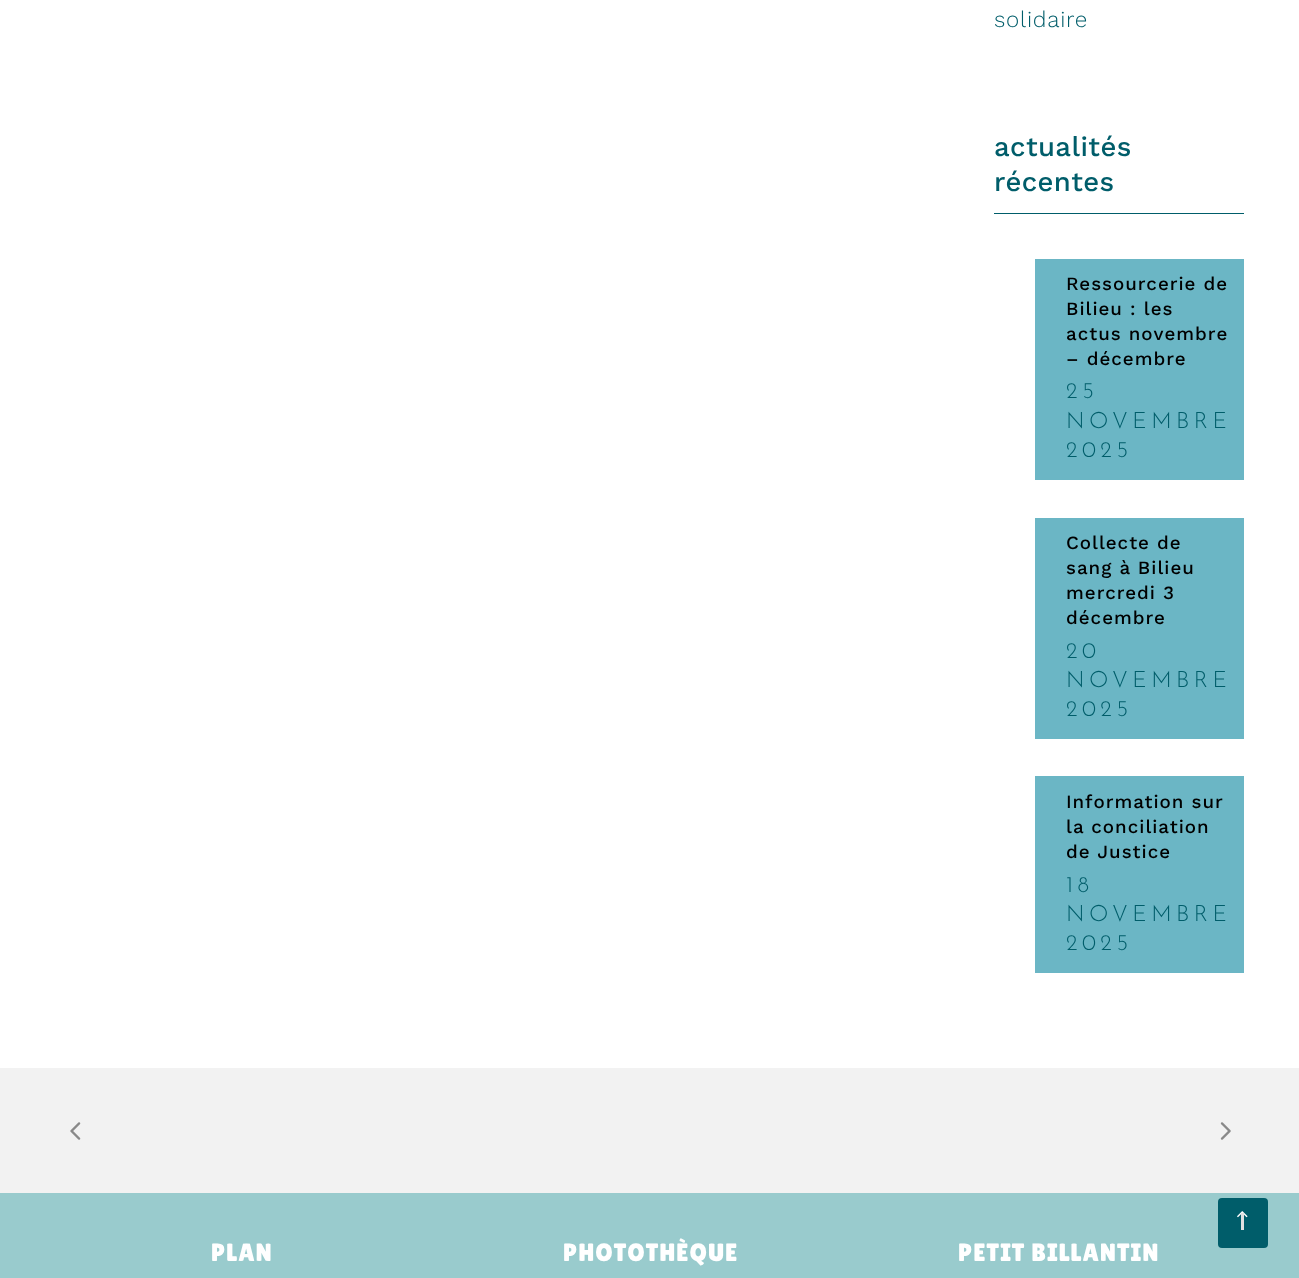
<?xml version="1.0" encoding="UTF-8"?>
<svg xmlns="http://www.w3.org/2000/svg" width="1299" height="1278">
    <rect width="100%" height="100%" fill="#FFFFFF"/>
    <text x="994" y="27" font-family="Work Sans" font-size="22.5" font-weight="300" letter-spacing="0.75" fill="#005D6A">solidaire</text>
    <rect x="994" y="213" width="250" height="1" fill="#005D6A"/>
    <text font-family="Work Sans" font-size="27.5" font-weight="500" letter-spacing="0.4" fill="#005D6A">
        <tspan x="994" y="156">actualités</tspan>
        <tspan x="994" y="191">récentes</tspan>
    </text>
    <rect x="1035" y="259" width="209" height="221" fill="#6BB6C5"/>
    <text font-family="Work Sans" font-size="18.75" font-weight="500" letter-spacing="1" fill="#000000">
        <tspan x="1066" y="290">Ressourcerie de</tspan>
        <tspan x="1066" y="315">Bilieu : les</tspan>
        <tspan x="1066" y="340">actus novembre</tspan>
        <tspan x="1066" y="365">– décembre</tspan>
    </text>
    <text font-family="Josefin Sans" font-size="22.5" font-weight="300" letter-spacing="4.5" fill="#005D6A">
        <tspan x="1066" y="398">25</tspan>
        <tspan x="1066" y="428">NOVEMBRE</tspan>
        <tspan x="1066" y="457">2025</tspan>
    </text>
    <rect x="1035" y="518" width="209" height="221" fill="#6BB6C5"/>
    <text font-family="Work Sans" font-size="18.75" font-weight="500" letter-spacing="1" fill="#000000">
        <tspan x="1066" y="549">Collecte de</tspan>
        <tspan x="1066" y="574">sang à Bilieu</tspan>
        <tspan x="1066" y="599">mercredi 3</tspan>
        <tspan x="1066" y="624">décembre</tspan>
    </text>
    <text font-family="Josefin Sans" font-size="22.5" font-weight="300" letter-spacing="4.5" fill="#005D6A">
        <tspan x="1066" y="658">20</tspan>
        <tspan x="1066" y="687">NOVEMBRE</tspan>
        <tspan x="1066" y="716">2025</tspan>
    </text>
    <rect x="1035" y="776" width="209" height="197" fill="#6BB6C5"/>
    <text font-family="Work Sans" font-size="18.75" font-weight="500" letter-spacing="1" fill="#000000">
        <tspan x="1066" y="808">Information sur</tspan>
        <tspan x="1066" y="833">la conciliation</tspan>
        <tspan x="1066" y="858">de Justice</tspan>
    </text>
    <text font-family="Josefin Sans" font-size="22.5" font-weight="300" letter-spacing="4.5" fill="#005D6A">
        <tspan x="1066" y="892">18</tspan>
        <tspan x="1066" y="921">NOVEMBRE</tspan>
        <tspan x="1066" y="950">2025</tspan>
    </text>
    <rect x="0" y="1068" width="1299" height="125" fill="#F2F2F2"/>
    <image x="70" y="1122" width="11" height="18" href="img_01.png"/>
    <image x="1220" y="1122" width="11" height="18" href="img_02.png"/>
    <rect x="0" y="1193" width="1299" height="85" fill="#99CBCD"/>
    <rect x="1218" y="1198" width="50" height="50" rx="4" fill="#005D6A"/>
    <image x="1237" y="1211" width="11" height="7" href="img_03.png"/>
    <rect x="1241" y="1213" width="3" height="17" fill="#E1E1E1"/>
    <text x="211" y="1261" font-family="Lilita One" font-size="25" letter-spacing="1" fill="#FFFFFF">PLAN</text>
    <text x="563" y="1261" font-family="Lilita One" font-size="25" letter-spacing="1" fill="#FFFFFF">PHOTOTHÈQUE</text>
    <text x="958" y="1261" font-family="Lilita One" font-size="25" letter-spacing="1" fill="#FFFFFF">PETIT BILLANTIN</text>
</svg>
